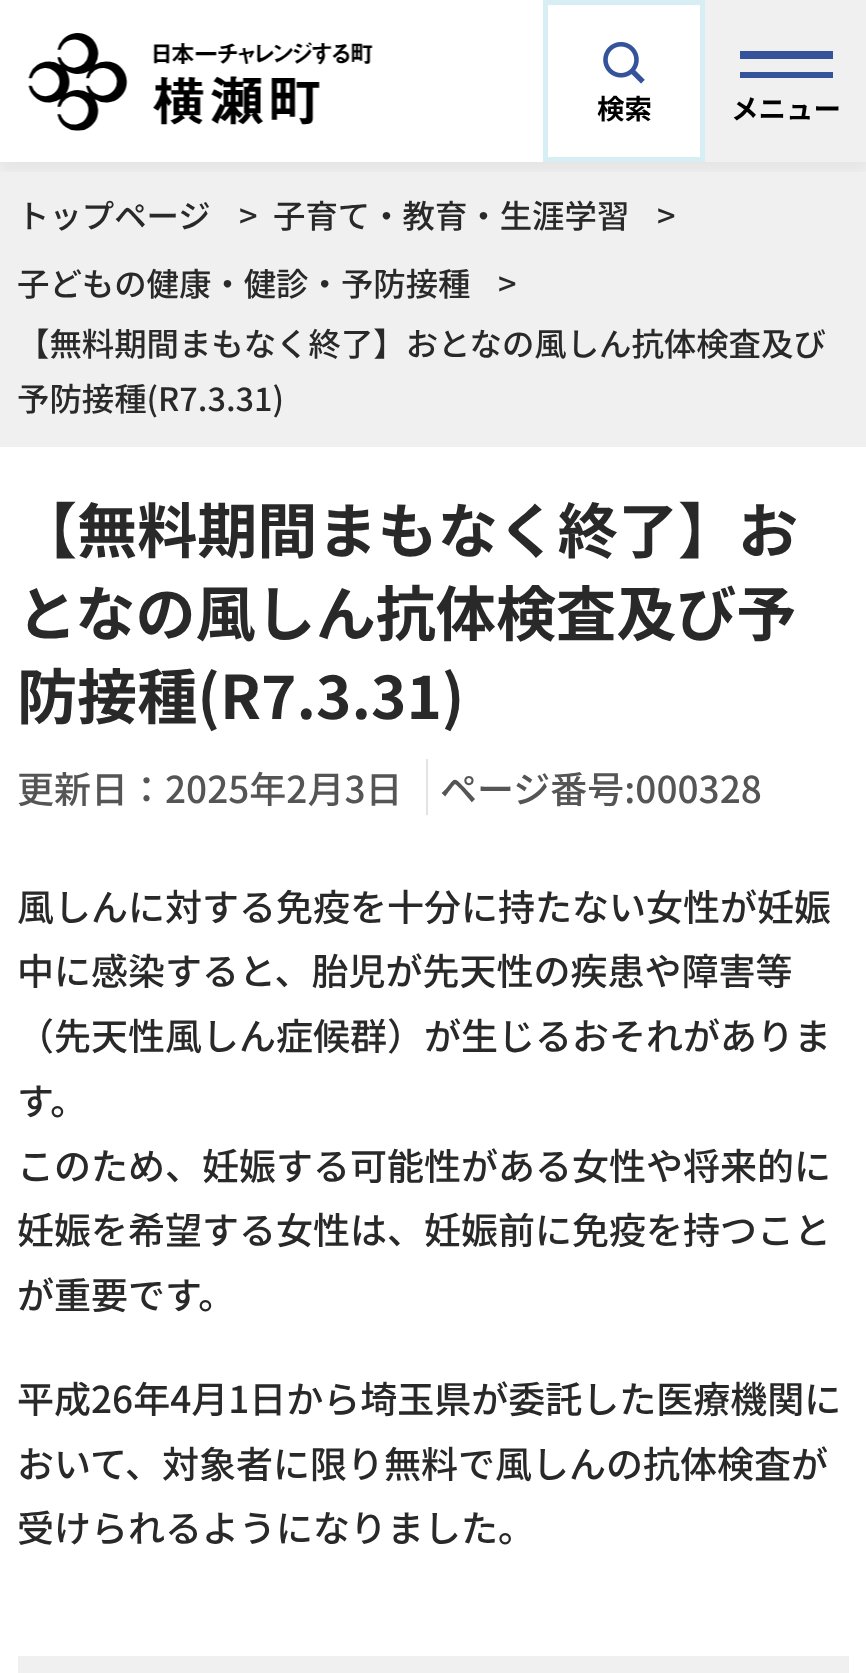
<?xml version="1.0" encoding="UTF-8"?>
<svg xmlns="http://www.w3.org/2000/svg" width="866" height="1673">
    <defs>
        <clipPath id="clip1"><rect x="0" y="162" width="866" height="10"/></clipPath>
        <filter id="blur1" x="-50%" y="-200%" width="200%" height="500%"><feGaussianBlur stdDeviation="7"/></filter>
    </defs>
    <rect width="100%" height="100%" fill="#FFFFFF"/>
    <rect x="0" y="162" width="866" height="285" fill="#F0F0F0"/>
    <g clip-path="url(#clip1)">
        <rect x="0" y="8" width="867" height="162" fill="#000000" fill-opacity="0.05" filter="url(#blur1)"/>
    </g>
    <image x="28" y="33" width="345" height="98" href="img_01.png"/>
    <rect x="545.5" y="2.5" width="157" height="157" fill="none" stroke="#D7EEF4" stroke-width="5"/>
    <image x="603" y="42" width="42" height="42" href="img_02.png"/>
    <text x="597" y="119" font-family="Noto Sans JP" font-size="27.5" font-weight="700" fill="#000000">検索</text>
    <rect x="705" y="0" width="161" height="162" fill="#F0F0F0"/>
    <rect x="740" y="51" width="93" height="8" fill="#34539A"/>
    <rect x="740" y="72" width="93" height="6" fill="#34539A"/>
    <text x="731" y="119" font-family="Noto Sans JP" font-size="27.5" font-weight="700" fill="#000000">メニュー</text>
    <text x="17" y="228" font-family="Noto Sans JP" font-size="32.4" font-weight="500" fill="#292929">トップページ</text>
    <text x="239" y="228" font-family="Noto Sans JP" font-size="32.4" font-weight="500" fill="#292929">&gt;</text>
    <text x="273" y="228" font-family="Noto Sans JP" font-size="32.4" font-weight="500" fill="#292929">子育て・教育・生涯学習</text>
    <text x="657" y="228" font-family="Noto Sans JP" font-size="32.4" font-weight="500" fill="#292929">&gt;</text>
    <text x="17" y="296" font-family="Noto Sans JP" font-size="32.4" font-weight="500" fill="#292929">子どもの健康・健診・予防接種</text>
    <text x="498" y="296" font-family="Noto Sans JP" font-size="32.4" font-weight="500" fill="#292929">&gt;</text>
    <text font-family="Noto Sans JP" font-size="32.4" font-weight="500" fill="#292929">
        <tspan x="17" y="356">【無料期間まもなく終了】おとなの風しん抗体検査及び</tspan>
        <tspan x="17" y="411">予防接種(R7.3.31)</tspan>
    </text>
    <text font-family="Noto Sans JP" font-size="60.1" font-weight="700" fill="#292929">
        <tspan x="17" y="553">【無料期間まもなく終了】お</tspan>
        <tspan x="17" y="636">となの風しん抗体検査及び予</tspan>
        <tspan x="17" y="719">防接種(R7.3.31)</tspan>
    </text>
    <rect x="426" y="759" width="2" height="56" fill="#E3E3E3"/>
    <text x="17" y="803" font-family="Noto Sans JP" font-size="37" font-weight="500" fill="#555555">更新日：2025年2月3日</text>
    <text x="440" y="803" font-family="Noto Sans JP" font-size="37" font-weight="500" fill="#555555">ページ番号:000328</text>
    <text font-family="Noto Sans JP" font-size="37" font-weight="500" fill="#292929">
        <tspan x="17" y="921">風しんに対する免疫を十分に持たない女性が妊娠</tspan>
        <tspan x="17" y="985">中に感染すると、胎児が先天性の疾患や障害等</tspan>
        <tspan x="17" y="1050">（先天性風しん症候群）が生じるおそれがありま</tspan>
        <tspan x="17" y="1115">す。</tspan>
        <tspan x="17" y="1180">このため、妊娠する可能性がある女性や将来的に</tspan>
        <tspan x="17" y="1244">妊娠を希望する女性は、妊娠前に免疫を持つこと</tspan>
        <tspan x="17" y="1309">が重要です。</tspan>
    </text>
    <text font-family="Noto Sans JP" font-size="37" font-weight="500" fill="#292929">
        <tspan x="17" y="1413">平成26年4月1日から埼玉県が委託した医療機関に</tspan>
        <tspan x="17" y="1478">おいて、対象者に限り無料で風しんの抗体検査が</tspan>
        <tspan x="17" y="1542">受けられるようになりました。</tspan>
    </text>
    <rect x="18" y="1656" width="831" height="17" fill="#F0F0F0"/>
</svg>
